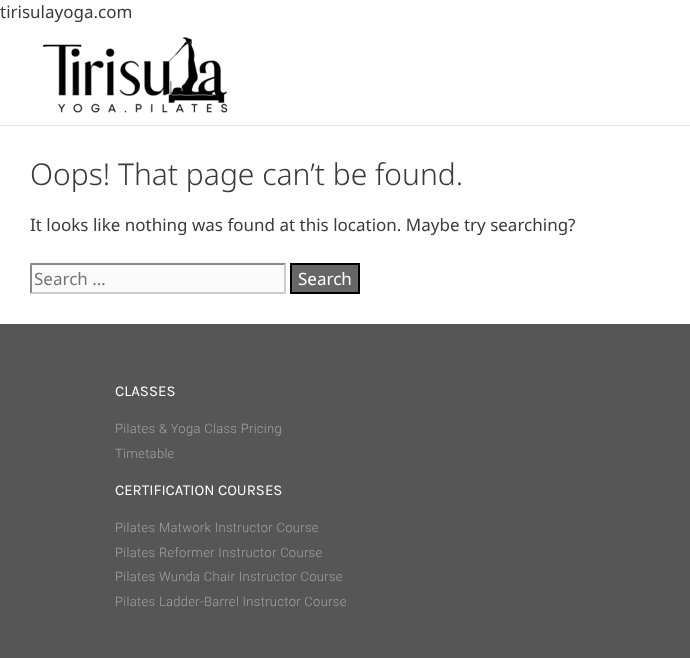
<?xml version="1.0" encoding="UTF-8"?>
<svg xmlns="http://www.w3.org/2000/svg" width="690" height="658">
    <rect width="100%" height="100%" fill="#FFFFFF"/>
    <text x="0" y="18" font-family="Noto Sans" font-size="17" fill="#3A3A3A">tirisulayoga.com</text>
    <rect x="0" y="125" width="690" height="1" fill="#E7E7E7"/>
    <image x="42" y="37" width="186" height="76" href="img_01.png"/>
    <text x="30" y="185" font-family="Noto Sans" font-size="30" font-weight="300" fill="#3A3A3A">Oops! That page can’t be found.</text>
    <text x="30" y="231" font-family="Noto Sans" font-size="17" fill="#3A3A3A">It looks like nothing was found at this location. Maybe try searching?</text>
    <rect x="30" y="263" width="256" height="31" fill="#FAFAFA"/>
    <path d="M 30 263 H 286 L 284 265 H 32 Z" fill="#888888"/>
    <path d="M 286 263 V 294 L 284 292 V 265 Z" fill="#CCCCCC"/>
    <path d="M 286 294 H 30 L 32 292 H 284 Z" fill="#CCCCCC"/>
    <path d="M 30 294 V 263 L 32 265 V 292 Z" fill="#888888"/>
    <text x="34" y="285" font-family="Noto Sans" font-size="17" fill="#757575">Search …</text>
    <rect x="291" y="264" width="68" height="29" fill="#666666" stroke="#000000" stroke-width="2"/>
    <text x="298" y="285" font-family="Noto Sans" font-size="17" fill="#FFFFFF">Search</text>
    <rect x="0" y="324" width="690" height="334" fill="#565656"/>
    <text x="115" y="396" font-family="Karla" font-size="15" fill="#FFFFFF">CLASSES</text>
    <text font-family="Roboto" font-size="13" font-weight="300" letter-spacing="0.3" fill="#A2A2A2">
        <tspan x="115" y="433">Pilates &amp; Yoga Class Pricing</tspan>
        <tspan x="115" y="458">Timetable</tspan>
    </text>
    <text x="115" y="495" font-family="Karla" font-size="15" fill="#FFFFFF">CERTIFICATION COURSES</text>
    <text font-family="Roboto" font-size="13" font-weight="300" letter-spacing="0.3" fill="#A2A2A2">
        <tspan x="115" y="532">Pilates Matwork Instructor Course</tspan>
        <tspan x="115" y="557">Pilates Reformer Instructor Course</tspan>
        <tspan x="115" y="581">Pilates Wunda Chair Instructor Course</tspan>
        <tspan x="115" y="606">Pilates Ladder-Barrel Instructor Course</tspan>
    </text>
</svg>
